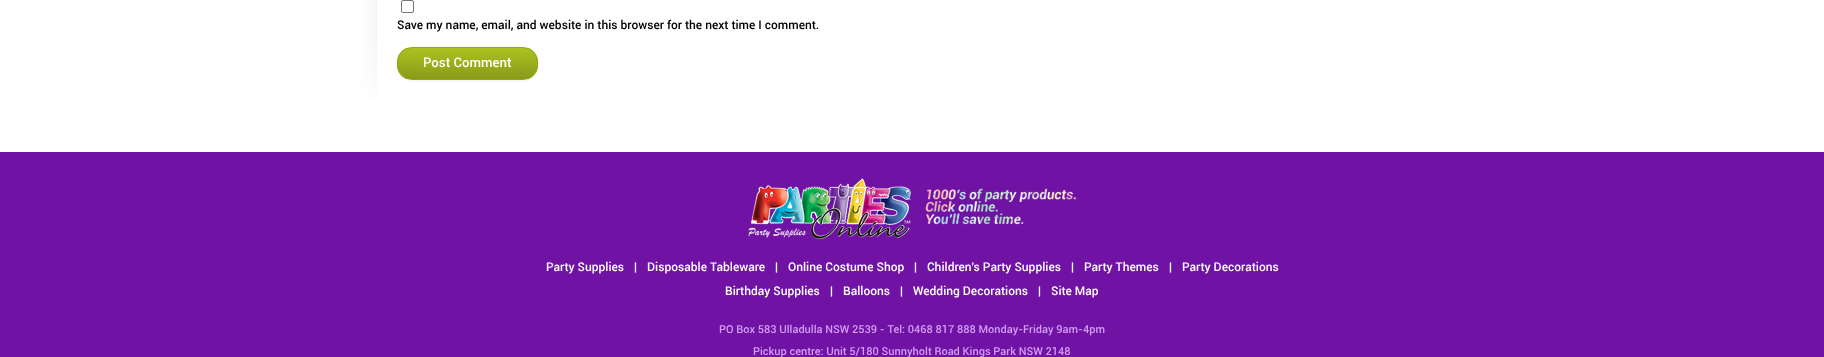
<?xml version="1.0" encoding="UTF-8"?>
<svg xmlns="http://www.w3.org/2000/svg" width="1824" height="357">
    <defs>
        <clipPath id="clip1"><rect x="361" y="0" width="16" height="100"/></clipPath>
        <filter id="blur1" x="-50%" y="-200%" width="200%" height="500%"><feGaussianBlur stdDeviation="20"/></filter>
        <filter id="blur2" x="-50%" y="-200%" width="200%" height="500%"><feGaussianBlur stdDeviation="1"/></filter>
        <clipPath id="clip2"><rect x="397" y="47" width="141" height="33" rx="15"/></clipPath>
        <linearGradient id="g1" gradientUnits="userSpaceOnUse" x1="468" y1="48" x2="468" y2="79"><stop offset="0" stop-color="#ACC221"/><stop offset="1" stop-color="#899A1A"/></linearGradient>
    </defs>
    <rect width="100%" height="100%" fill="#FFFFFF"/>
    <g clip-path="url(#clip1)">
        <rect x="402" y="-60" width="970" height="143" fill="#999999" filter="url(#blur1)"/>
    </g>
    <rect x="401.5" y="0.5" width="12" height="12" rx="1.5" fill="none" stroke="#767676"/>
    <text x="397" y="29" font-family="Roboto" font-size="12" font-weight="500" fill="#000000">Save my name, email, and website in this browser for the next time I comment.</text>
    <rect x="397" y="48" width="141" height="33" rx="15" fill="#404040" fill-opacity="0.1" filter="url(#blur2)"/>
    <g clip-path="url(#clip2)">
        <rect x="397" y="48" width="141" height="31" fill="url(#g1)"/>
    </g>
    <rect x="397.5" y="47.5" width="140" height="32" rx="14.5" fill="none" stroke="#94AA0A"/>
    <text x="423" y="67" font-family="Roboto" font-size="13.25" font-weight="500" fill="#FFFFFF">Post Comment</text>
    <rect x="0" y="152" width="1824" height="205" fill="#7013A4"/>
    <image x="748" y="178" width="328" height="62" href="img_01.png"/>
    <text x="546" y="271" font-family="Roboto" font-size="12" font-weight="500" fill="#FFFFFF">Party Supplies</text>
    <text x="634" y="271" font-family="Roboto" font-size="12" font-weight="500" fill="#FFFFFF">|</text>
    <text x="647" y="271" font-family="Roboto" font-size="12" font-weight="500" fill="#FFFFFF">Disposable Tableware</text>
    <text x="775" y="271" font-family="Roboto" font-size="12" font-weight="500" fill="#FFFFFF">|</text>
    <text x="788" y="271" font-family="Roboto" font-size="12" font-weight="500" fill="#FFFFFF">Online Costume Shop</text>
    <text x="914" y="271" font-family="Roboto" font-size="12" font-weight="500" fill="#FFFFFF">|</text>
    <text x="927" y="271" font-family="Roboto" font-size="12" font-weight="500" fill="#FFFFFF">Children's Party Supplies</text>
    <text x="1071" y="271" font-family="Roboto" font-size="12" font-weight="500" fill="#FFFFFF">|</text>
    <text x="1084" y="271" font-family="Roboto" font-size="12" font-weight="500" fill="#FFFFFF">Party Themes</text>
    <text x="1169" y="271" font-family="Roboto" font-size="12" font-weight="500" fill="#FFFFFF">|</text>
    <text x="1182" y="271" font-family="Roboto" font-size="12" font-weight="500" fill="#FFFFFF">Party Decorations</text>
    <text x="725" y="295" font-family="Roboto" font-size="12" font-weight="500" fill="#FFFFFF">Birthday Supplies</text>
    <text x="830" y="295" font-family="Roboto" font-size="12" font-weight="500" fill="#FFFFFF">|</text>
    <text x="843" y="295" font-family="Roboto" font-size="12" font-weight="500" fill="#FFFFFF">Balloons</text>
    <text x="900" y="295" font-family="Roboto" font-size="12" font-weight="500" fill="#FFFFFF">|</text>
    <text x="913" y="295" font-family="Roboto" font-size="12" font-weight="500" fill="#FFFFFF">Wedding Decorations</text>
    <text x="1038" y="295" font-family="Roboto" font-size="12" font-weight="500" fill="#FFFFFF">|</text>
    <text x="1051" y="295" font-family="Roboto" font-size="12" font-weight="500" fill="#FFFFFF">Site Map</text>
    <text x="719" y="333" font-family="Roboto" font-size="11" font-weight="500" fill="#D39CF7">PO Box 583 Ulladulla NSW 2539 - Tel: 0468 817 888 Monday-Friday 9am-4pm</text>
    <text x="753" y="355" font-family="Roboto" font-size="11" font-weight="500" fill="#D39CF7">Pickup centre: Unit 5/180 Sunnyholt Road Kings Park NSW 2148</text>
</svg>
